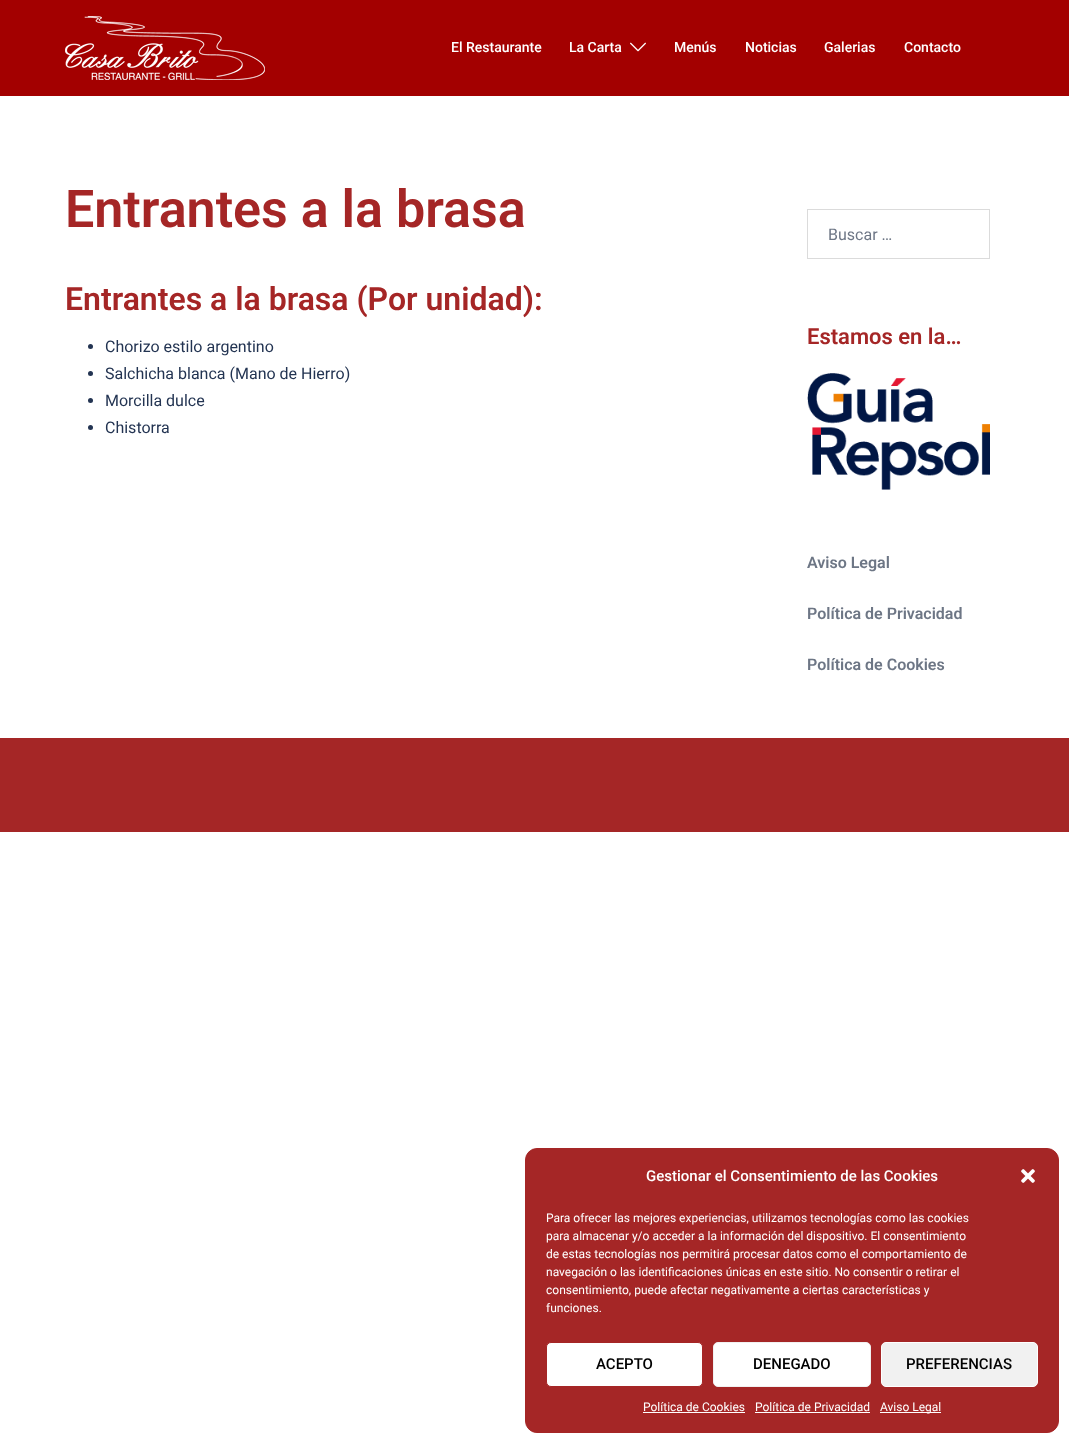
<?xml version="1.0" encoding="UTF-8"?>
<svg xmlns="http://www.w3.org/2000/svg" width="1069" height="1433">
    <rect width="100%" height="100%" fill="#FFFFFF"/>
    <rect x="0" y="0" width="1069" height="96" fill="#A30000"/>
    <image x="65" y="16" width="200" height="64" href="img_01.png"/>
    <text x="451" y="52" font-family="Roboto" font-size="14" font-weight="500" fill="#FFFFFF">El Restaurante</text>
    <text x="569" y="52" font-family="Roboto" font-size="14" font-weight="500" fill="#FFFFFF">La Carta</text>
    <image x="630" y="42" width="16" height="10" href="img_02.png"/>
    <text x="674" y="52" font-family="Roboto" font-size="14" font-weight="500" fill="#FFFFFF">Menús</text>
    <text x="745" y="52" font-family="Roboto" font-size="14" font-weight="500" fill="#FFFFFF">Noticias</text>
    <text x="824" y="52" font-family="Roboto" font-size="14" font-weight="500" fill="#FFFFFF">Galerias</text>
    <text x="904" y="52" font-family="Roboto" font-size="14" font-weight="500" fill="#FFFFFF">Contacto</text>
    <text x="65" y="227" font-family="Roboto" font-size="52" font-weight="600" fill="#A52626">Entrantes a la brasa</text>
    <text x="65" y="310" font-family="Roboto" font-size="32" font-weight="600" fill="#A52626">Entrantes a la brasa (Por unidad):</text>
    <circle cx="90.5" cy="346.5" r="2.5" fill="#233452"/>
    <text x="105" y="352" font-family="Roboto" font-size="16" fill="#233452">Chorizo estilo argentino</text>
    <circle cx="90.5" cy="373.5" r="2.5" fill="#233452"/>
    <text x="105" y="379" font-family="Roboto" font-size="16" fill="#233452">Salchicha blanca (Mano de Hierro)</text>
    <circle cx="90.5" cy="400.5" r="2.5" fill="#233452"/>
    <text x="105" y="406" font-family="Roboto" font-size="16" fill="#233452">Morcilla dulce</text>
    <circle cx="90.5" cy="427.5" r="2.5" fill="#233452"/>
    <text x="105" y="433" font-family="Roboto" font-size="16" fill="#233452">Chistorra</text>
    <rect x="807.5" y="209.5" width="182" height="49" fill="none" stroke="#DBDBDB"/>
    <text x="828" y="240" font-family="Roboto" font-size="16" fill="#6D7685">Buscar …</text>
    <text x="807" y="344" font-family="Roboto" font-size="22" font-weight="600" fill="#A52626">Estamos en la…</text>
    <image x="807" y="373" width="183" height="117" href="img_03.png"/>
    <text x="807" y="568" font-family="Roboto" font-size="16" font-weight="600" fill="#6D7685">Aviso Legal</text>
    <text x="807" y="619" font-family="Roboto" font-size="16" font-weight="600" fill="#6D7685">Política de Privacidad</text>
    <text x="807" y="670" font-family="Roboto" font-size="16" font-weight="600" fill="#6D7685">Política de Cookies</text>
    <rect x="0" y="738" width="1069" height="94" fill="#A52626"/>
    <rect x="525.5" y="1148.5" width="533" height="284" rx="11.5" fill="#A52626" stroke="#A52626"/>
    <text x="646" y="1181" font-family="Roboto" font-size="15" font-weight="500" fill="#FFFFFF">Gestionar el Consentimiento de las Cookies</text>
    <image x="1021" y="1169" width="14" height="14" href="img_04.png"/>
    <text font-family="Roboto" font-size="12" fill="#FFFFFF">
        <tspan x="546" y="1222">Para ofrecer las mejores experiencias, utilizamos tecnologías como las cookies</tspan>
        <tspan x="546" y="1240">para almacenar y/o acceder a la información del dispositivo. El consentimiento</tspan>
        <tspan x="546" y="1258">de estas tecnologías nos permitirá procesar datos como el comportamiento de</tspan>
        <tspan x="546" y="1276">navegación o las identificaciones únicas en este sitio. No consentir o retirar el</tspan>
        <tspan x="546" y="1294">consentimiento, puede afectar negativamente a ciertas características y</tspan>
        <tspan x="546" y="1312">funciones.</tspan>
    </text>
    <rect x="546.5" y="1342.5" width="156" height="44" rx="4.5" fill="#FFFFFF" stroke="#A52626"/>
    <text x="596" y="1369" font-family="Roboto" font-size="15" font-weight="500" fill="#000000">ACEPTO</text>
    <rect x="713.5" y="1342.5" width="157" height="44" rx="4.5" fill="#FFFFFF" stroke="#F1F1F1"/>
    <text x="753" y="1369" font-family="Roboto" font-size="15" font-weight="500" fill="#000000">DENEGADO</text>
    <rect x="881.5" y="1342.5" width="156" height="44" rx="4.5" fill="#F1F1F1" stroke="#FFFFFF"/>
    <text x="906" y="1369" font-family="Roboto" font-size="15" font-weight="500" fill="#000000">PREFERENCIAS</text>
    <text x="643" y="1411" font-family="Roboto" font-size="12" fill="#FFFFFF">Política de Cookies</text>
    <rect x="643" y="1412" width="102" height="1" fill="#FFFFFF"/>
    <text x="755" y="1411" font-family="Roboto" font-size="12" fill="#FFFFFF">Política de Privacidad</text>
    <rect x="755" y="1412" width="115" height="1" fill="#FFFFFF"/>
    <rect x="880" y="1412" width="61" height="1" fill="#FFFFFF"/>
    <text x="880" y="1411" font-family="Roboto" font-size="12" fill="#FFFFFF">Aviso Legal</text>
</svg>
